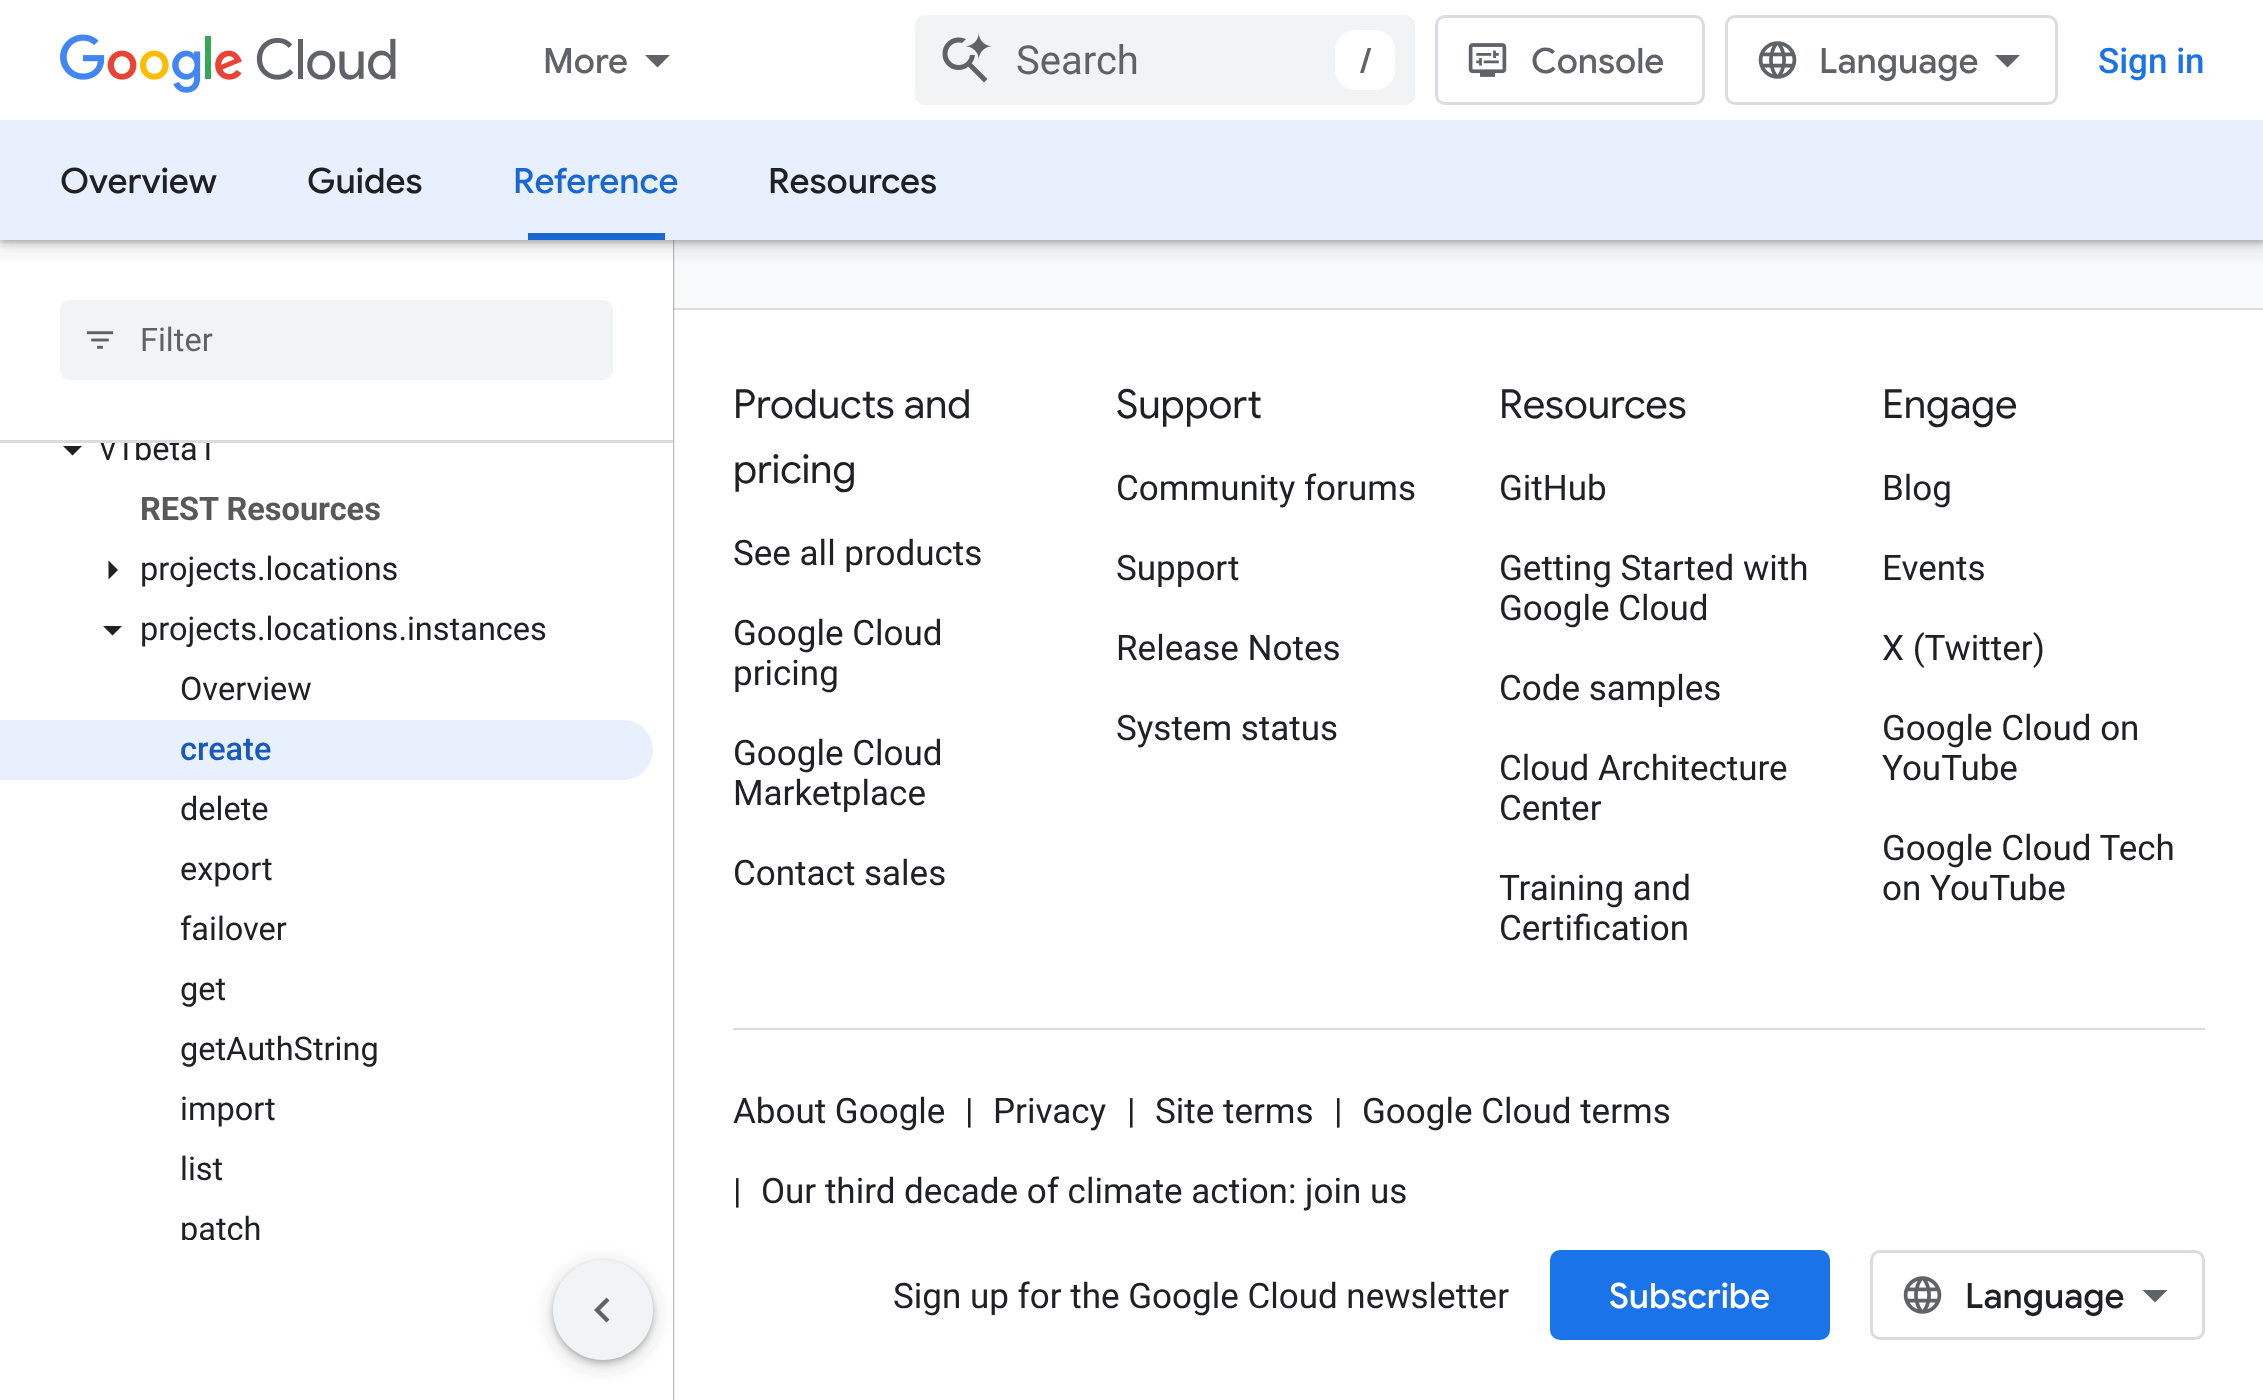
<?xml version="1.0" encoding="UTF-8"?>
<svg xmlns="http://www.w3.org/2000/svg" width="2263" height="1400">
    <defs>
        <filter id="blur1" x="-50%" y="-200%" width="200%" height="500%"><feGaussianBlur stdDeviation="1"/></filter>
        <filter id="blur2" x="-50%" y="-200%" width="200%" height="500%"><feGaussianBlur stdDeviation="7.5"/></filter>
        <filter id="blur3" x="-50%" y="-200%" width="200%" height="500%"><feGaussianBlur stdDeviation="2.5"/></filter>
    </defs>
    <rect width="100%" height="100%" fill="#F8F9FA"/>
    <rect x="673" y="308" width="1590" height="2" fill="#DADCE0"/>
    <rect x="673" y="310" width="1590" height="1090" fill="#FFFFFF"/>
    <rect x="0" y="3" width="673" height="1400" fill="#3C4043" filter="url(#blur1)"/>
    <rect x="0" y="443" width="673" height="797" fill="#FFFFFF"/>
    <text x="100" y="460" font-family="Roboto" font-size="32.5" fill="#202124">v1beta1</text>
    <rect x="0" y="240" width="673" height="200" fill="#FFFFFF"/>
    <rect x="-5" y="-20" width="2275" height="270" fill="#3C4043" fill-opacity="0.15" filter="url(#blur2)"/>
    <rect x="0" y="-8" width="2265" height="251" fill="#3C4043" fill-opacity="0.3" filter="url(#blur3)"/>
    <rect x="0" y="0" width="2263" height="120" fill="#FFFFFF"/>
    <image x="60" y="34" width="336" height="59" href="img_01.png"/>
    <text x="543" y="73" font-family="Google Sans" font-size="35" font-weight="500" fill="#5F6368">More</text>
    <path d="M 645 55 H 670 L 657.5 67.5 Z" fill="#5F6368"/>
    <rect x="915" y="15" width="500" height="90" rx="10" fill="#F1F3F4"/>
    <image x="942" y="33" width="50" height="50" href="img_02.png"/>
    <text x="1016" y="74" font-family="Roboto" font-size="40" fill="#5F6368">Search</text>
    <rect x="1335" y="30" width="60" height="60" rx="20" fill="#FFFFFF"/>
    <text x="1360" y="73" font-family="Google Sans" font-size="35" font-weight="500" fill="#5F6368">/</text>
    <rect x="1436.5" y="16.5" width="267" height="87" rx="8.5" fill="none" stroke="#DADCE0" stroke-width="3"/>
    <image x="1468" y="43" width="39" height="34" href="img_03.png"/>
    <text x="1531" y="73" font-family="Google Sans" font-size="35" font-weight="500" fill="#5F6368">Console</text>
    <rect x="1726.5" y="16.5" width="330" height="87" rx="8.5" fill="none" stroke="#DADCE0" stroke-width="3"/>
    <image x="1758" y="41" width="39" height="38" href="img_04.png"/>
    <text x="1819" y="73" font-family="Google Sans" font-size="35" font-weight="500" fill="#5F6368">Language</text>
    <path d="M 2007.5 67.5 L 1995 55 H 2020 Z" fill="#5F6368"/>
    <text x="2098" y="73" font-family="Roboto" font-size="35" font-weight="500" fill="#1A73E8">Sign in</text>
    <rect x="0" y="120" width="2263" height="120" fill="#E8F0FE"/>
    <text x="60" y="193" font-family="Google Sans" font-size="35" font-weight="500" fill="#202124">Overview</text>
    <text x="307" y="193" font-family="Google Sans" font-size="35" font-weight="500" fill="#202124">Guides</text>
    <text x="513" y="193" font-family="Google Sans" font-size="35" font-weight="500" fill="#1967D2">Reference</text>
    <rect x="528" y="233" width="137" height="7" fill="#1967D2"/>
    <text x="768" y="193" font-family="Google Sans" font-size="35" font-weight="500" fill="#202124">Resources</text>
    <rect x="0" y="440" width="673" height="3" fill="#DADCE0"/>
    <rect x="60" y="300" width="553" height="80" rx="10" fill="#F1F3F4"/>
    <image x="86" y="331" width="28" height="18" href="img_05.png"/>
    <text x="140" y="351" font-family="Roboto" font-size="32.5" fill="#5F6368">Filter</text>
    <path d="M 63 446 H 82 L 72.5 455.5 Z" fill="#202124"/>
    <text x="140" y="520" font-family="Roboto" font-size="32.5" font-weight="700" fill="#595959">REST Resources</text>
    <path d="M 108.5 579.5 V 560.5 L 118 570 Z" fill="#202124"/>
    <text x="140" y="580" font-family="Roboto" font-size="32.5" fill="#202124">projects.locations</text>
    <path d="M 103 626 H 122 L 112.5 635.5 Z" fill="#202124"/>
    <text x="140" y="640" font-family="Roboto" font-size="32.5" fill="#202124">projects.locations.instances</text>
    <text x="180" y="700" font-family="Roboto" font-size="32.5" fill="#202124">Overview</text>
    <path d="M 0 720 H 623 C 639.5 720 653 733.5 653 750 C 653 766.5 639.5 780 623 780 H 0 Z" fill="#E8F0FE"/>
    <text x="180" y="760" font-family="Roboto" font-size="32.5" font-weight="500" fill="#185ABC">create</text>
    <text font-family="Roboto" font-size="32.5" fill="#202124">
        <tspan x="180" y="820">delete</tspan>
        <tspan x="180" y="880">export</tspan>
        <tspan x="180" y="940">failover</tspan>
        <tspan x="180" y="1000">get</tspan>
        <tspan x="180" y="1060">getAuthString</tspan>
        <tspan x="180" y="1120">import</tspan>
        <tspan x="180" y="1180">list</tspan>
        <tspan x="180" y="1240">patch</tspan>
    </text>
    <rect x="0" y="1240" width="673" height="160" fill="#FFFFFF"/>
    <rect x="548" y="1260" width="110" height="110" rx="55" fill="#3C4043" fill-opacity="0.15" filter="url(#blur2)"/>
    <rect x="553" y="1263" width="100" height="100" rx="50" fill="#3C4043" fill-opacity="0.3" filter="url(#blur3)"/>
    <circle cx="603" cy="1310" r="50" fill="#F1F3F4"/>
    <path d="M 609.5 1300.5 L 600 1310 L 609.5 1319.5 L 606.5 1322.5 L 594 1310 L 606.5 1297.5 Z" fill="#5F6368"/>
    <rect x="733" y="1028" width="1472" height="2" fill="#DADCE0"/>
    <text font-family="Google Sans" font-size="40" fill="#202124">
        <tspan x="733" y="418">Products and</tspan>
        <tspan x="733" y="483">pricing</tspan>
    </text>
    <text x="733" y="565" font-family="Roboto" font-size="35" fill="#202124">See all products</text>
    <text font-family="Roboto" font-size="35" fill="#202124">
        <tspan x="733" y="645">Google Cloud</tspan>
        <tspan x="733" y="685">pricing</tspan>
    </text>
    <text font-family="Roboto" font-size="35" fill="#202124">
        <tspan x="733" y="765">Google Cloud</tspan>
        <tspan x="733" y="805">Marketplace</tspan>
    </text>
    <text x="733" y="885" font-family="Roboto" font-size="35" fill="#202124">Contact sales</text>
    <text x="1116" y="418" font-family="Google Sans" font-size="40" fill="#202124">Support</text>
    <text x="1116" y="500" font-family="Roboto" font-size="35" fill="#202124">Community forums</text>
    <text x="1116" y="580" font-family="Roboto" font-size="35" fill="#202124">Support</text>
    <text x="1116" y="660" font-family="Roboto" font-size="35" fill="#202124">Release Notes</text>
    <text x="1116" y="740" font-family="Roboto" font-size="35" fill="#202124">System status</text>
    <text x="1499" y="418" font-family="Google Sans" font-size="40" fill="#202124">Resources</text>
    <text x="1499" y="500" font-family="Roboto" font-size="35" fill="#202124">GitHub</text>
    <text font-family="Roboto" font-size="35" fill="#202124">
        <tspan x="1499" y="580">Getting Started with</tspan>
        <tspan x="1499" y="620">Google Cloud</tspan>
    </text>
    <text x="1499" y="700" font-family="Roboto" font-size="35" fill="#202124">Code samples</text>
    <text font-family="Roboto" font-size="35" fill="#202124">
        <tspan x="1499" y="780">Cloud Architecture</tspan>
        <tspan x="1499" y="820">Center</tspan>
    </text>
    <text font-family="Roboto" font-size="35" fill="#202124">
        <tspan x="1499" y="900">Training and</tspan>
        <tspan x="1499" y="940">Certification</tspan>
    </text>
    <text x="1882" y="418" font-family="Google Sans" font-size="40" fill="#202124">Engage</text>
    <text x="1882" y="500" font-family="Roboto" font-size="35" fill="#202124">Blog</text>
    <text x="1882" y="580" font-family="Roboto" font-size="35" fill="#202124">Events</text>
    <text x="1882" y="660" font-family="Roboto" font-size="35" fill="#202124">X (Twitter)</text>
    <text font-family="Roboto" font-size="35" fill="#202124">
        <tspan x="1882" y="740">Google Cloud on</tspan>
        <tspan x="1882" y="780">YouTube</tspan>
    </text>
    <text font-family="Roboto" font-size="35" fill="#202124">
        <tspan x="1882" y="860">Google Cloud Tech</tspan>
        <tspan x="1882" y="900">on YouTube</tspan>
    </text>
    <text x="733" y="1123" font-family="Roboto" font-size="35" fill="#202124">About Google</text>
    <text x="965" y="1123" font-family="Roboto" font-size="35" fill="#202124">|</text>
    <text x="993" y="1123" font-family="Roboto" font-size="35" fill="#202124">Privacy</text>
    <text x="1127" y="1123" font-family="Roboto" font-size="35" fill="#202124">|</text>
    <text x="1155" y="1123" font-family="Roboto" font-size="35" fill="#202124">Site terms</text>
    <text x="1334" y="1123" font-family="Roboto" font-size="35" fill="#202124">|</text>
    <text x="1362" y="1123" font-family="Roboto" font-size="35" fill="#202124">Google Cloud terms</text>
    <text x="733" y="1203" font-family="Roboto" font-size="35" fill="#202124">|</text>
    <text x="761" y="1203" font-family="Roboto" font-size="35" fill="#202124">Our third decade of climate action: join us</text>
    <text x="893" y="1308" font-family="Roboto" font-size="35" fill="#202124">Sign up for the Google Cloud newsletter</text>
    <rect x="1550" y="1250" width="280" height="90" rx="10" fill="#1A73E8"/>
    <text x="1609" y="1308" font-family="Google Sans" font-size="35" font-weight="500" fill="#FFFFFF">Subscribe</text>
    <rect x="1871.5" y="1251.5" width="332" height="87" rx="8.5" fill="none" stroke="#DADCE0" stroke-width="3"/>
    <image x="1903" y="1276" width="39" height="38" href="img_04.png"/>
    <text x="1965" y="1308" font-family="Google Sans" font-size="35" font-weight="500" fill="#202124">Language</text>
    <path d="M 2155 1302.5 L 2142.5 1290 H 2167.5 Z" fill="#5F6368"/>
</svg>
